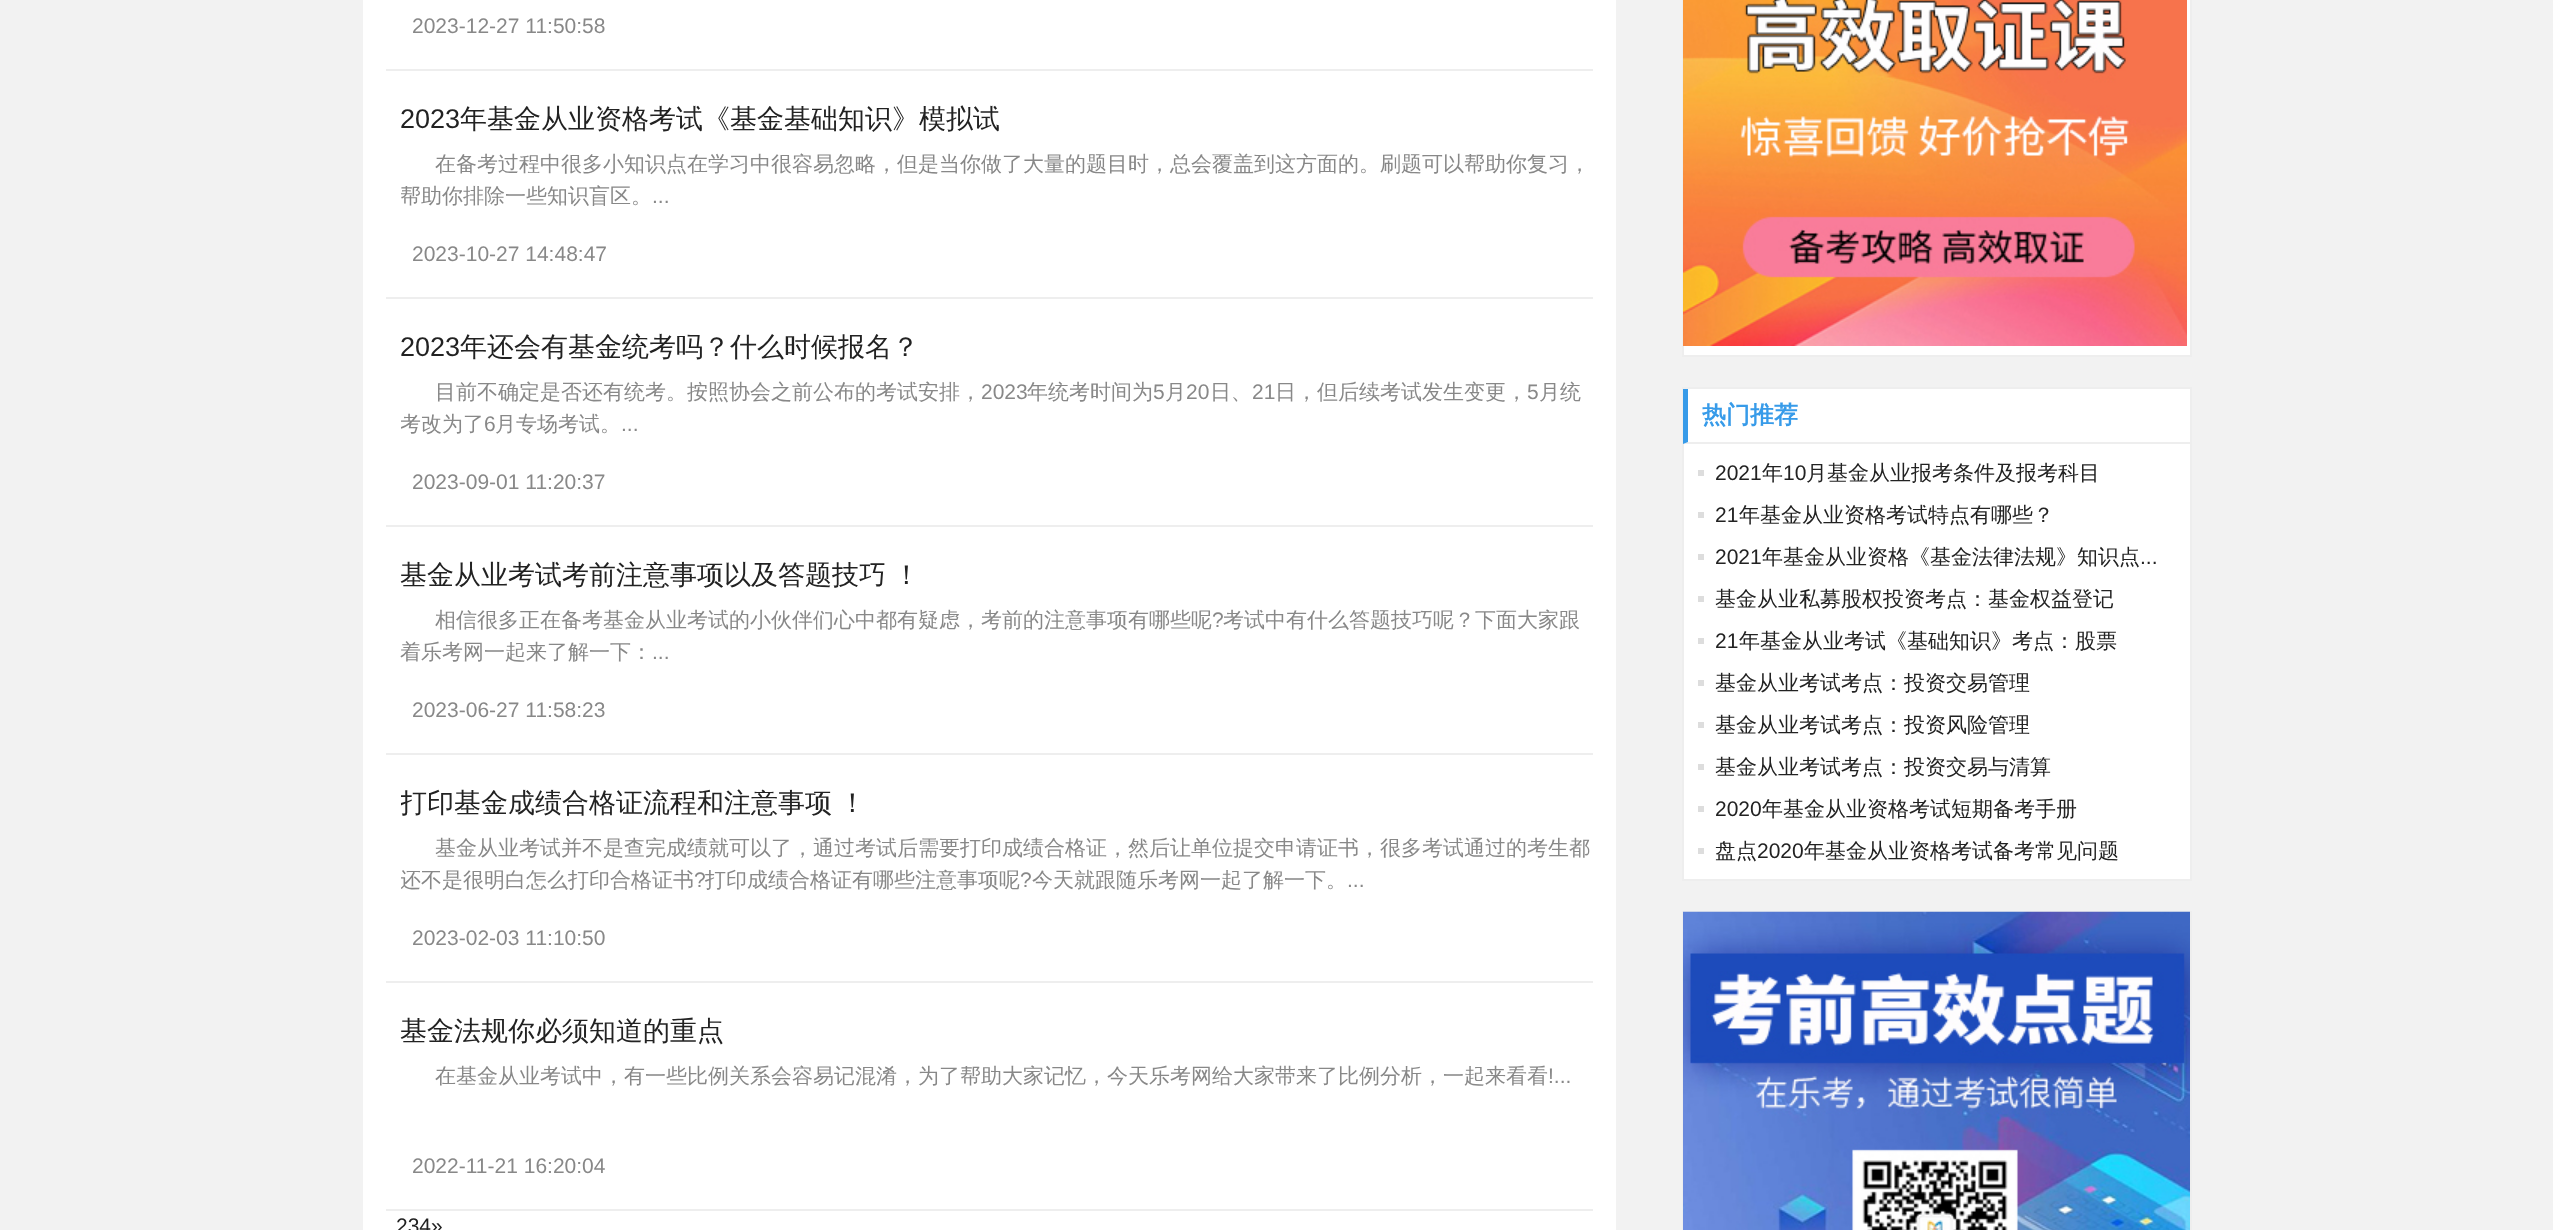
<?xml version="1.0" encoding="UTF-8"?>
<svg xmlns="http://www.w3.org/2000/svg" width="2553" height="1230">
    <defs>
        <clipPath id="clip1"><rect x="401" y="149" width="1192" height="67"/></clipPath>
        <clipPath id="clip2"><rect x="401" y="377" width="1192" height="67"/></clipPath>
        <clipPath id="clip3"><rect x="401" y="782" width="1192" height="42"/></clipPath>
        <clipPath id="clip4"><rect x="401" y="833" width="1192" height="67"/></clipPath>
        <clipPath id="clip5"><rect x="1683" y="389" width="507" height="490"/></clipPath>
    </defs>
    <rect width="100%" height="100%" fill="#F2F2F2"/>
    <rect x="363" y="0" width="1253" height="1230" fill="#FFFFFF"/>
    <rect x="386" y="69" width="1207" height="2" fill="#EEEEEE"/>
    <text x="412" y="33" font-family="Liberation Sans" font-size="21" fill="#888888">2023-12-27 11:50:58</text>
    <rect x="386" y="297" width="1207" height="2" fill="#EEEEEE"/>
    <text x="400" y="128" font-family="Liberation Sans" font-size="27" fill="#222222">2023</text>
    <text x="460" y="128" font-family="WenQuanYi Zen Hei" font-size="27" font-weight="500" fill="#222222">年基金从业资格考试《基金基础知识》模拟试</text>
    <text x="435" y="171" font-family="WenQuanYi Zen Hei" font-size="21" font-weight="500" fill="#888888">在备考过程中很多小知识点在学习中很容易忽略，但是当你做了大量的题目时，总会覆盖到这方面的。刷题可以帮助你复习，</text>
    <g clip-path="url(#clip1)">
        <text x="400" y="203" font-family="WenQuanYi Zen Hei" font-size="21" font-weight="500" fill="#888888">帮助你排除一些知识盲区。</text>
    </g>
    <text x="652" y="203" font-family="Liberation Sans" font-size="21" fill="#888888">...</text>
    <text x="412" y="261" font-family="Liberation Sans" font-size="21" fill="#888888">2023-10-27 14:48:47</text>
    <rect x="386" y="525" width="1207" height="2" fill="#EEEEEE"/>
    <text x="400" y="356" font-family="Liberation Sans" font-size="27" fill="#222222">2023</text>
    <text x="460" y="356" font-family="WenQuanYi Zen Hei" font-size="27" font-weight="500" fill="#222222">年还会有基金统考吗？什么时候报名？</text>
    <text x="435" y="399" font-family="WenQuanYi Zen Hei" font-size="21" font-weight="500" fill="#888888">目前不确定是否还有统考。按照协会之前公布的考试安排，</text>
    <text x="981" y="399" font-family="Liberation Sans" font-size="21" fill="#888888">2023</text>
    <text x="1027" y="399" font-family="WenQuanYi Zen Hei" font-size="21" font-weight="500" fill="#888888">年统考时间为</text>
    <text x="1153" y="399" font-family="Liberation Sans" font-size="21" fill="#888888">5</text>
    <text x="1165" y="399" font-family="WenQuanYi Zen Hei" font-size="21" font-weight="500" fill="#888888">月</text>
    <text x="1186" y="399" font-family="Liberation Sans" font-size="21" fill="#888888">20</text>
    <text x="1210" y="399" font-family="WenQuanYi Zen Hei" font-size="21" font-weight="500" fill="#888888">日、</text>
    <text x="1252" y="399" font-family="Liberation Sans" font-size="21" fill="#888888">21</text>
    <text x="1275" y="399" font-family="WenQuanYi Zen Hei" font-size="21" font-weight="500" fill="#888888">日，但后续考试发生变更，</text>
    <text x="1527" y="399" font-family="Liberation Sans" font-size="21" fill="#888888">5</text>
    <text x="1539" y="399" font-family="WenQuanYi Zen Hei" font-size="21" font-weight="500" fill="#888888">月统</text>
    <g clip-path="url(#clip2)">
        <text x="400" y="431" font-family="WenQuanYi Zen Hei" font-size="21" font-weight="500" fill="#888888">考改为了</text>
    </g>
    <text x="484" y="431" font-family="Liberation Sans" font-size="21" fill="#888888">6</text>
    <text x="495" y="431" font-family="WenQuanYi Zen Hei" font-size="21" font-weight="500" fill="#888888">月专场考试。</text>
    <text x="621" y="431" font-family="Liberation Sans" font-size="21" fill="#888888">...</text>
    <text x="412" y="489" font-family="Liberation Sans" font-size="21" fill="#888888">2023-09-01 11:20:37</text>
    <rect x="386" y="753" width="1207" height="2" fill="#EEEEEE"/>
    <text x="400" y="584" word-spacing="-1" font-family="WenQuanYi Zen Hei" font-size="27" font-weight="500" fill="#222222">基金从业考试考前注意事项以及答题技巧 ！</text>
    <text x="435" y="627" font-family="WenQuanYi Zen Hei" font-size="21" font-weight="500" fill="#888888">相信很多正在备考基金从业考试的小伙伴们心中都有疑虑，考前的注意事项有哪些呢</text>
    <text x="1212" y="627" font-family="Liberation Sans" font-size="21" fill="#888888">?</text>
    <text x="1223" y="627" font-family="WenQuanYi Zen Hei" font-size="21" font-weight="500" fill="#888888">考试中有什么答题技巧呢？下面大家跟</text>
    <text x="400" y="659" font-family="WenQuanYi Zen Hei" font-size="21" font-weight="500" fill="#888888">着乐考网一起来了解一下：</text>
    <text x="652" y="659" font-family="Liberation Sans" font-size="21" fill="#888888">...</text>
    <text x="412" y="717" font-family="Liberation Sans" font-size="21" fill="#888888">2023-06-27 11:58:23</text>
    <rect x="386" y="981" width="1207" height="2" fill="#EEEEEE"/>
    <g clip-path="url(#clip3)">
        <text x="400" y="812" word-spacing="-1" font-family="WenQuanYi Zen Hei" font-size="27" font-weight="500" fill="#222222">打印基金成绩合格证流程和注意事项 ！</text>
    </g>
    <text x="435" y="855" font-family="WenQuanYi Zen Hei" font-size="21" font-weight="500" fill="#888888">基金从业考试并不是查完成绩就可以了，通过考试后需要打印成绩合格证，然后让单位提交申请证书，很多考试通过的考生都</text>
    <g clip-path="url(#clip4)">
        <text x="400" y="887" font-family="WenQuanYi Zen Hei" font-size="21" font-weight="500" fill="#888888">还不是很明白怎么打印合格证书</text>
    </g>
    <text x="694" y="887" font-family="Liberation Sans" font-size="21" fill="#888888">?</text>
    <text x="705" y="887" font-family="WenQuanYi Zen Hei" font-size="21" font-weight="500" fill="#888888">打印成绩合格证有哪些注意事项呢</text>
    <text x="1020" y="887" font-family="Liberation Sans" font-size="21" fill="#888888">?</text>
    <text x="1032" y="887" font-family="WenQuanYi Zen Hei" font-size="21" font-weight="500" fill="#888888">今天就跟随乐考网一起了解一下。</text>
    <text x="1347" y="887" font-family="Liberation Sans" font-size="21" fill="#888888">...</text>
    <text x="412" y="945" font-family="Liberation Sans" font-size="21" fill="#888888">2023-02-03 11:10:50</text>
    <rect x="386" y="1209" width="1207" height="2" fill="#EEEEEE"/>
    <text x="400" y="1040" font-family="WenQuanYi Zen Hei" font-size="27" font-weight="500" fill="#222222">基金法规你必须知道的重点</text>
    <text x="435" y="1083" font-family="WenQuanYi Zen Hei" font-size="21" font-weight="500" fill="#888888">在基金从业考试中，有一些比例关系会容易记混淆，为了帮助大家记忆，今天乐考网给大家带来了比例分析，一起来看看</text>
    <text x="1548" y="1083" font-family="Liberation Sans" font-size="21" fill="#888888">!...</text>
    <text x="412" y="1173" font-family="Liberation Sans" font-size="21" fill="#888888">2022-11-21 16:20:04</text>
    <text x="396" y="1233" font-family="Liberation Sans" font-size="21" fill="#222222">234»</text>
    <rect x="1683" y="-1" width="508" height="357" fill="#FFFFFF" stroke="#EEEEEE" stroke-width="2"/>
    <image x="1683" y="0" width="504" height="346" href="img_01.png"/>
    <rect x="1683" y="388" width="508" height="492" fill="#FFFFFF" stroke="#EEEEEE" stroke-width="2"/>
    <path d="M 2190 444 H 1683 L 1688 442 H 2190 Z" fill="#EEEEEE"/>
    <g clip-path="url(#clip5)">
        <path d="M 1683 444 V 388 H 1688 V 442 Z" fill="#379BE9"/>
    </g>
    <text x="1702" y="423" font-family="WenQuanYi Zen Hei" font-size="24" font-weight="700" fill="#379BE9">热门推荐</text>
    <rect x="1698" y="470" width="6" height="6" fill="#DDDDDD"/>
    <text x="1715" y="480" font-family="Liberation Sans" font-size="21" fill="#222222">2021</text>
    <text x="1762" y="480" font-family="WenQuanYi Zen Hei" font-size="21" font-weight="500" fill="#222222">年</text>
    <text x="1783" y="480" font-family="Liberation Sans" font-size="21" fill="#222222">10</text>
    <text x="1806" y="480" font-family="WenQuanYi Zen Hei" font-size="21" font-weight="500" fill="#222222">月基金从业报考条件及报考科目</text>
    <rect x="1698" y="512" width="6" height="6" fill="#DDDDDD"/>
    <text x="1715" y="522" font-family="Liberation Sans" font-size="21" fill="#222222">21</text>
    <text x="1739" y="522" font-family="WenQuanYi Zen Hei" font-size="21" font-weight="500" fill="#222222">年基金从业资格考试特点有哪些？</text>
    <rect x="1698" y="554" width="6" height="6" fill="#DDDDDD"/>
    <text x="1715" y="564" font-family="Liberation Sans" font-size="21" fill="#222222">2021</text>
    <text x="1762" y="564" font-family="WenQuanYi Zen Hei" font-size="21" font-weight="500" fill="#222222">年基金从业资格《基金法律法规》知识点</text>
    <text x="2140" y="564" font-family="Liberation Sans" font-size="21" fill="#222222">...</text>
    <rect x="1698" y="596" width="6" height="6" fill="#DDDDDD"/>
    <text x="1715" y="606" font-family="WenQuanYi Zen Hei" font-size="21" font-weight="500" fill="#222222">基金从业私募股权投资考点：基金权益登记</text>
    <rect x="1698" y="638" width="6" height="6" fill="#DDDDDD"/>
    <text x="1715" y="648" font-family="Liberation Sans" font-size="21" fill="#222222">21</text>
    <text x="1739" y="648" font-family="WenQuanYi Zen Hei" font-size="21" font-weight="500" fill="#222222">年基金从业考试《基础知识》考点：股票</text>
    <rect x="1698" y="680" width="6" height="6" fill="#DDDDDD"/>
    <text x="1715" y="690" font-family="WenQuanYi Zen Hei" font-size="21" font-weight="500" fill="#222222">基金从业考试考点：投资交易管理</text>
    <rect x="1698" y="722" width="6" height="6" fill="#DDDDDD"/>
    <text x="1715" y="732" font-family="WenQuanYi Zen Hei" font-size="21" font-weight="500" fill="#222222">基金从业考试考点：投资风险管理</text>
    <rect x="1698" y="764" width="6" height="6" fill="#DDDDDD"/>
    <text x="1715" y="774" font-family="WenQuanYi Zen Hei" font-size="21" font-weight="500" fill="#222222">基金从业考试考点：投资交易与清算</text>
    <rect x="1698" y="806" width="6" height="6" fill="#DDDDDD"/>
    <text x="1715" y="816" font-family="Liberation Sans" font-size="21" fill="#222222">2020</text>
    <text x="1762" y="816" font-family="WenQuanYi Zen Hei" font-size="21" font-weight="500" fill="#222222">年基金从业资格考试短期备考手册</text>
    <rect x="1698" y="848" width="6" height="6" fill="#DDDDDD"/>
    <text x="1715" y="858" font-family="WenQuanYi Zen Hei" font-size="21" font-weight="500" fill="#222222">盘点</text>
    <text x="1757" y="858" font-family="Liberation Sans" font-size="21" fill="#222222">2020</text>
    <text x="1804" y="858" font-family="WenQuanYi Zen Hei" font-size="21" font-weight="500" fill="#222222">年基金从业资格考试备考常见问题</text>
    <rect x="1683" y="912" width="508" height="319" fill="none" stroke="#EEEEEE" stroke-width="2"/>
    <image x="1683" y="911" width="507" height="319" href="img_02.png"/>
</svg>
